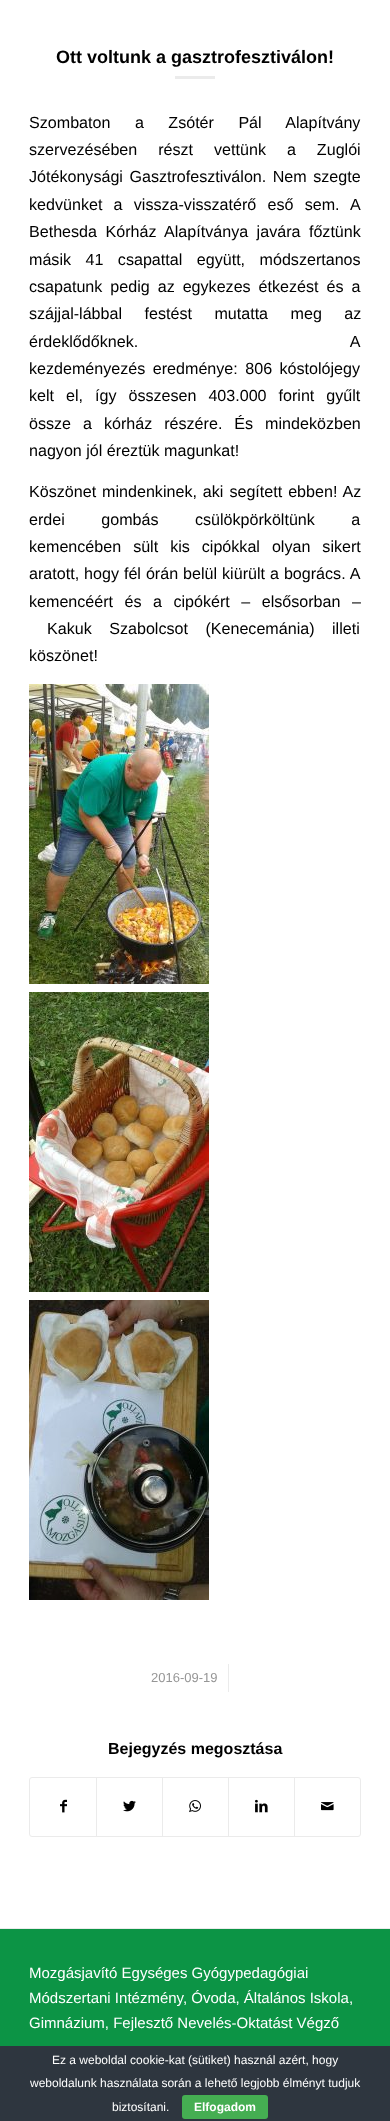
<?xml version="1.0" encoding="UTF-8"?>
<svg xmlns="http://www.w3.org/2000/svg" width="390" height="2121">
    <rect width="100%" height="100%" fill="#FFFFFF"/>
    <text x="56" y="63" font-family="Liberation Sans" font-size="18" font-weight="700" fill="#000000">Ott voltunk a gasztrofesztiválon!</text>
    <rect x="175" y="76" width="40" height="3" fill="#EBEBEB"/>
    <text font-family="Liberation Sans" font-size="16.1" fill="#000000">
        <tspan x="29" y="128" word-spacing="20">Szombaton a Zsótér Pál Alapítvány</tspan>
        <tspan x="29" y="155" word-spacing="16.5">szervezésében részt vettünk a Zuglói</tspan>
        <tspan x="29" y="182" word-spacing="2">Jótékonysági Gasztrofesztiválon. Nem szegte</tspan>
        <tspan x="29" y="210" word-spacing="6.75">kedvünket a vissza-visszatérő eső sem. A</tspan>
        <tspan x="29" y="237" word-spacing="4">Bethesda Kórház Alapítványa javára főztünk</tspan>
        <tspan x="29" y="265" word-spacing="10">másik 41 csapattal együtt, módszertanos</tspan>
        <tspan x="29" y="292" word-spacing="3.5">csapatunk pedig az egykezes étkezést és a</tspan>
        <tspan x="29" y="319" word-spacing="18">szájjal-lábbal festést mutatta meg az</tspan>
        <tspan x="29" y="347" word-spacing="208">érdeklődőknek. A</tspan>
        <tspan x="29" y="374" word-spacing="3">kezdeményezés eredménye: 806 kóstolójegy</tspan>
        <tspan x="29" y="401" word-spacing="7.5">kelt el, így összesen 403.000 forint gyűlt</tspan>
        <tspan x="29" y="429" word-spacing="7.5">össze a kórház részére. És mindeközben</tspan>
        <tspan x="29" y="456">nagyon jól éreztük magunkat!</tspan>
    </text>
    <text font-family="Liberation Sans" font-size="16.1" fill="#000000">
        <tspan x="29" y="497" word-spacing="1.5">Köszönet mindenkinek, aki segített ebben! Az</tspan>
        <tspan x="29" y="525" word-spacing="32">erdei gombás csülökpörköltünk a</tspan>
        <tspan x="29" y="552" word-spacing="7.5">kemencében sült kis cipókkal olyan sikert</tspan>
        <tspan x="29" y="579" word-spacing="0.5">aratott, hogy fél órán belül kiürült a bogrács. A</tspan>
        <tspan x="29" y="607" word-spacing="7">kemencéért és a cipókért – elsősorban –</tspan>
    </text>
    <text x="47" y="634" word-spacing="13" font-family="Liberation Sans" font-size="16.1" fill="#000000">Kakuk Szabolcsot (Kenecemánia) illeti</text>
    <text x="29" y="661" font-family="Liberation Sans" font-size="16.1" fill="#000000">köszönet!</text>
    <image x="29" y="684" width="180" height="300" href="img_01.png"/>
    <image x="29" y="992" width="180" height="300" href="img_02.png"/>
    <image x="29" y="1300" width="180" height="300" href="img_03.png"/>
    <text x="151" y="1682" font-family="Liberation Sans" font-size="13" fill="#969696">2016-09-19</text>
    <rect x="228" y="1664" width="1" height="28" fill="#EBEBEB"/>
    <text x="108" y="1754" font-family="Liberation Sans" font-size="16" font-weight="700" fill="#000000">Bejegyzés megosztása</text>
    <rect x="29.5" y="1777.5" width="331" height="59" rx="2.5" fill="none" stroke="#EBEBEB"/>
    <image x="60" y="1799" width="7" height="14" href="img_04.png"/>
    <rect x="96" y="1778" width="1" height="58" fill="#EBEBEB"/>
    <image x="123" y="1800" width="13" height="12" href="img_05.png"/>
    <rect x="162" y="1778" width="1" height="58" fill="#EBEBEB"/>
    <image x="189" y="1800" width="12" height="13" href="img_06.png"/>
    <rect x="228" y="1778" width="1" height="58" fill="#EBEBEB"/>
    <image x="255" y="1799" width="13" height="14" href="img_07.png"/>
    <rect x="294" y="1778" width="1" height="58" fill="#EBEBEB"/>
    <image x="321" y="1802" width="13" height="9" href="img_08.png"/>
    <rect x="0" y="1928" width="390" height="1" fill="#EBEBEB"/>
    <rect x="0" y="1929" width="390" height="117" fill="#0C9445"/>
    <text font-family="Liberation Sans" font-size="15" fill="#FFFFFF">
        <tspan x="29" y="1978">Mozgásjavító Egységes Gyógypedagógiai</tspan>
        <tspan x="29" y="2003">Módszertani Intézmény, Óvoda, Általános Iskola,</tspan>
        <tspan x="29" y="2028">Gimnázium, Fejlesztő Nevelés-Oktatást Végző</tspan>
    </text>
    <rect x="0" y="2046" width="390" height="75" fill="#2E363F"/>
    <text x="52" y="2064" font-family="Liberation Sans" font-size="12" fill="#FFFFFF">Ez a weboldal cookie-kat (sütiket) használ azért, hogy</text>
    <text x="30" y="2087" font-family="Liberation Sans" font-size="12" fill="#FFFFFF">weboldalunk használata során a lehető legjobb élményt tudjuk</text>
    <text x="112" y="2111" font-family="Liberation Sans" font-size="12" fill="#FFFFFF">biztosítani.</text>
    <rect x="182" y="2095" width="86" height="24" rx="3" fill="#45AE52"/>
    <text x="194" y="2111" font-family="Liberation Sans" font-size="12" font-weight="700" fill="#FFFFFF">Elfogadom</text>
</svg>
